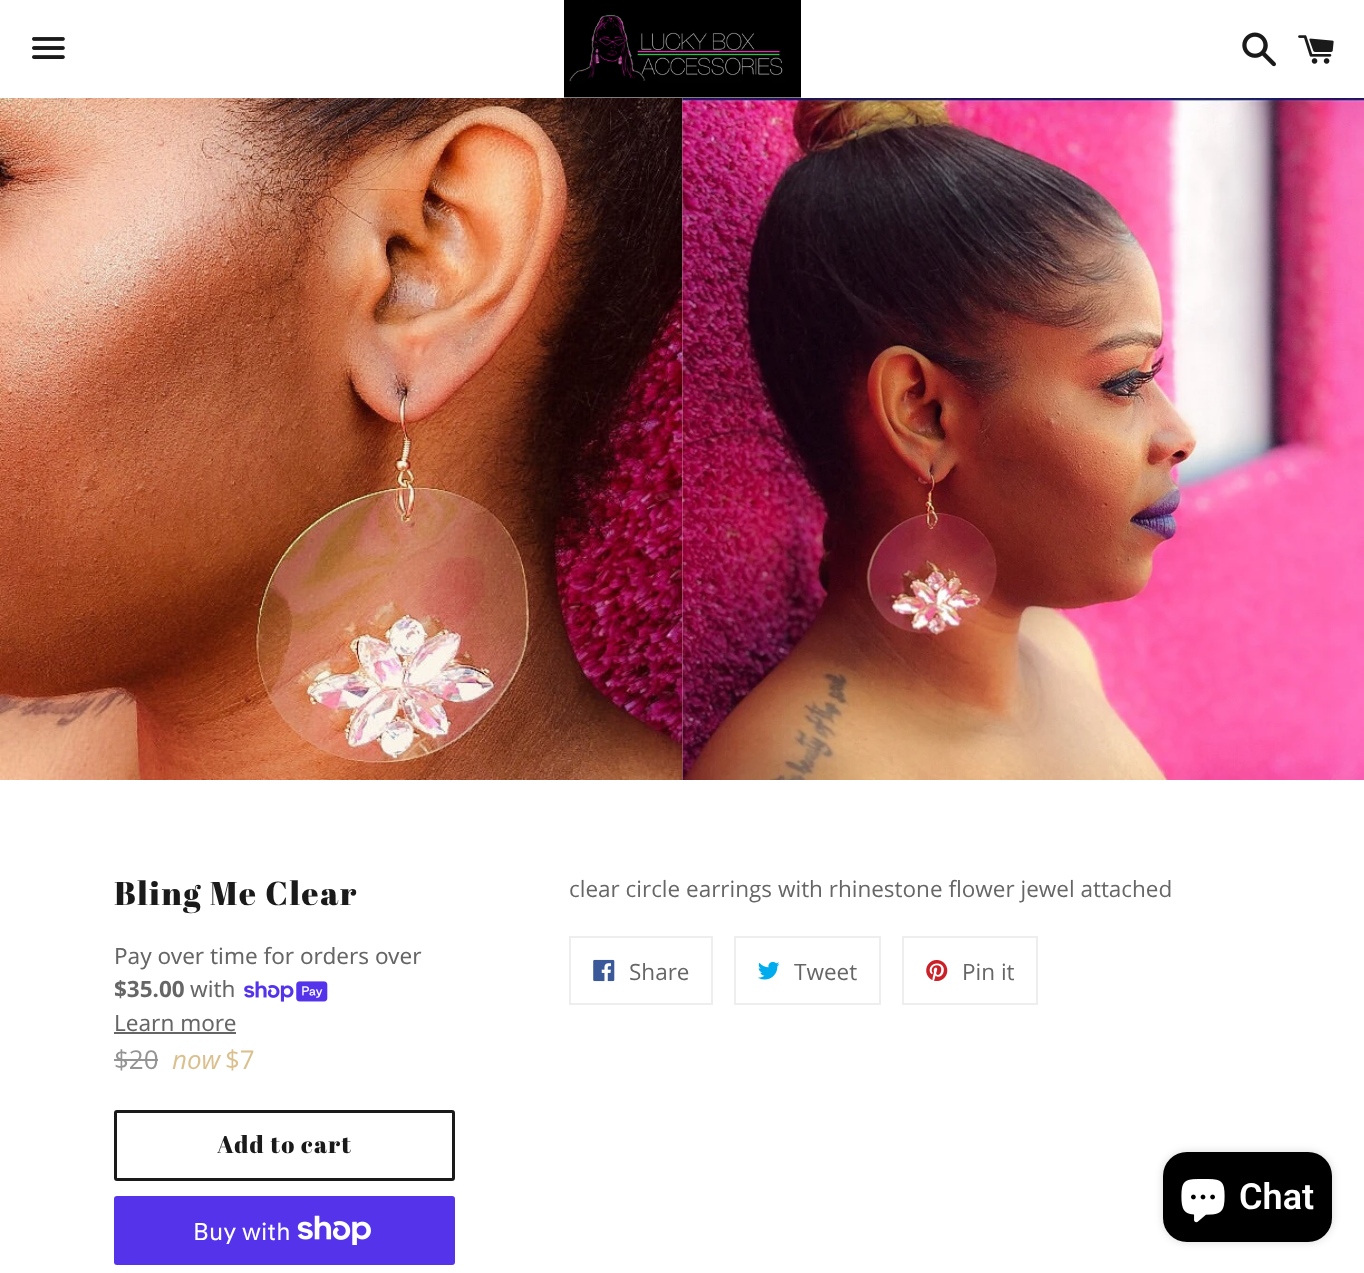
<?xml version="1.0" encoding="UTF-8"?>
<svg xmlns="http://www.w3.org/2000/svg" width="1364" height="1273">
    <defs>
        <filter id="blur1" x="-50%" y="-200%" width="200%" height="500%"><feGaussianBlur stdDeviation="4"/></filter>
    </defs>
    <rect width="100%" height="100%" fill="#FFFFFF"/>
    <image x="32" y="37" width="33" height="22" href="img_01.png"/>
    <image x="564" y="0" width="237" height="98" href="img_02.png"/>
    <image x="1242" y="32" width="34" height="35" href="img_03.png"/>
    <image x="1298" y="35" width="36" height="29" href="img_04.png"/>
    <image x="0" y="98" width="683" height="682" href="img_05.png"/>
    <image x="682" y="98" width="682" height="682" href="img_06.png"/>
    <text x="114" y="905" font-family="Abril Fatface" font-size="33" letter-spacing="1.6" fill="#1A1A1A">Bling Me Clear</text>
    <text x="114" y="964" font-family="Noto Sans" font-size="22.5" fill="#666666">Pay over time for orders over</text>
    <text x="114" y="997" font-family="Noto Sans" font-size="22.5" font-weight="700" fill="#666666">$35.00</text>
    <text x="190" y="997" font-family="Noto Sans" font-size="22.5" fill="#666666">with</text>
    <image x="244" y="981" width="84" height="21" href="img_07.png"/>
    <text x="114" y="1031" font-family="Noto Sans" font-size="22.5" fill="#666666">Learn more</text>
    <rect x="114" y="1032" width="122" height="2" fill="#666666"/>
    <text x="114" y="1069" font-family="Open Sans" font-size="26" fill="#949494">$20</text>
    <rect x="114" y="1059" width="44" height="2" fill="#949494"/>
    <text x="172" y="1069" font-family="Open Sans" font-size="26" font-style="italic" fill="#DAC08E">now</text>
    <text x="225" y="1069" font-family="Open Sans" font-size="26" fill="#DAC08E">$7</text>
    <rect x="115.5" y="1111.5" width="338" height="68" rx="1.5" fill="none" stroke="#1A1A1A" stroke-width="3"/>
    <text x="217" y="1153" font-family="Abril Fatface" font-size="24" letter-spacing="1.25" fill="#1A1A1A">Add to cart</text>
    <rect x="114" y="1196" width="341" height="69" rx="3" fill="#5433EB"/>
    <text x="193" y="1240" font-family="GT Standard" font-size="24" fill="#FFFFFF">Buy with</text>
    <image x="297" y="1215" width="74" height="30" href="img_08.png"/>
    <text x="569" y="897" font-family="Open Sans" font-size="22.5" fill="#666666">clear circle earrings with rhinestone flower jewel attached</text>
    <rect x="570" y="937" width="142" height="67" fill="none" stroke="#EEEEEE" stroke-width="2"/>
    <image x="593" y="959" width="22" height="23" href="img_09.png"/>
    <text x="629" y="980" font-family="Open Sans" font-size="22.5" fill="#666666">Share</text>
    <rect x="735" y="937" width="145" height="67" fill="none" stroke="#EEEEEE" stroke-width="2"/>
    <image x="758" y="961" width="22" height="19" href="img_10.png"/>
    <text x="794" y="980" font-family="Open Sans" font-size="22.5" fill="#666666">Tweet</text>
    <rect x="903" y="937" width="134" height="67" fill="none" stroke="#EEEEEE" stroke-width="2"/>
    <image x="926" y="960" width="22" height="21" href="img_11.png"/>
    <text x="962" y="980" font-family="Open Sans" font-size="22.5" fill="#666666">Pin it</text>
    <rect x="1163" y="1152" width="169" height="90" rx="24" fill="#000000" fill-opacity="0.15" filter="url(#blur1)"/>
    <rect x="1163" y="1152" width="169" height="90" rx="24" fill="#000000"/>
    <image x="1181" y="1179" width="44" height="44" href="img_12.png"/>
    <text x="1239" y="1209" font-family="Roboto" font-size="36" font-weight="600" fill="#FFFFFF">Chat</text>
</svg>
